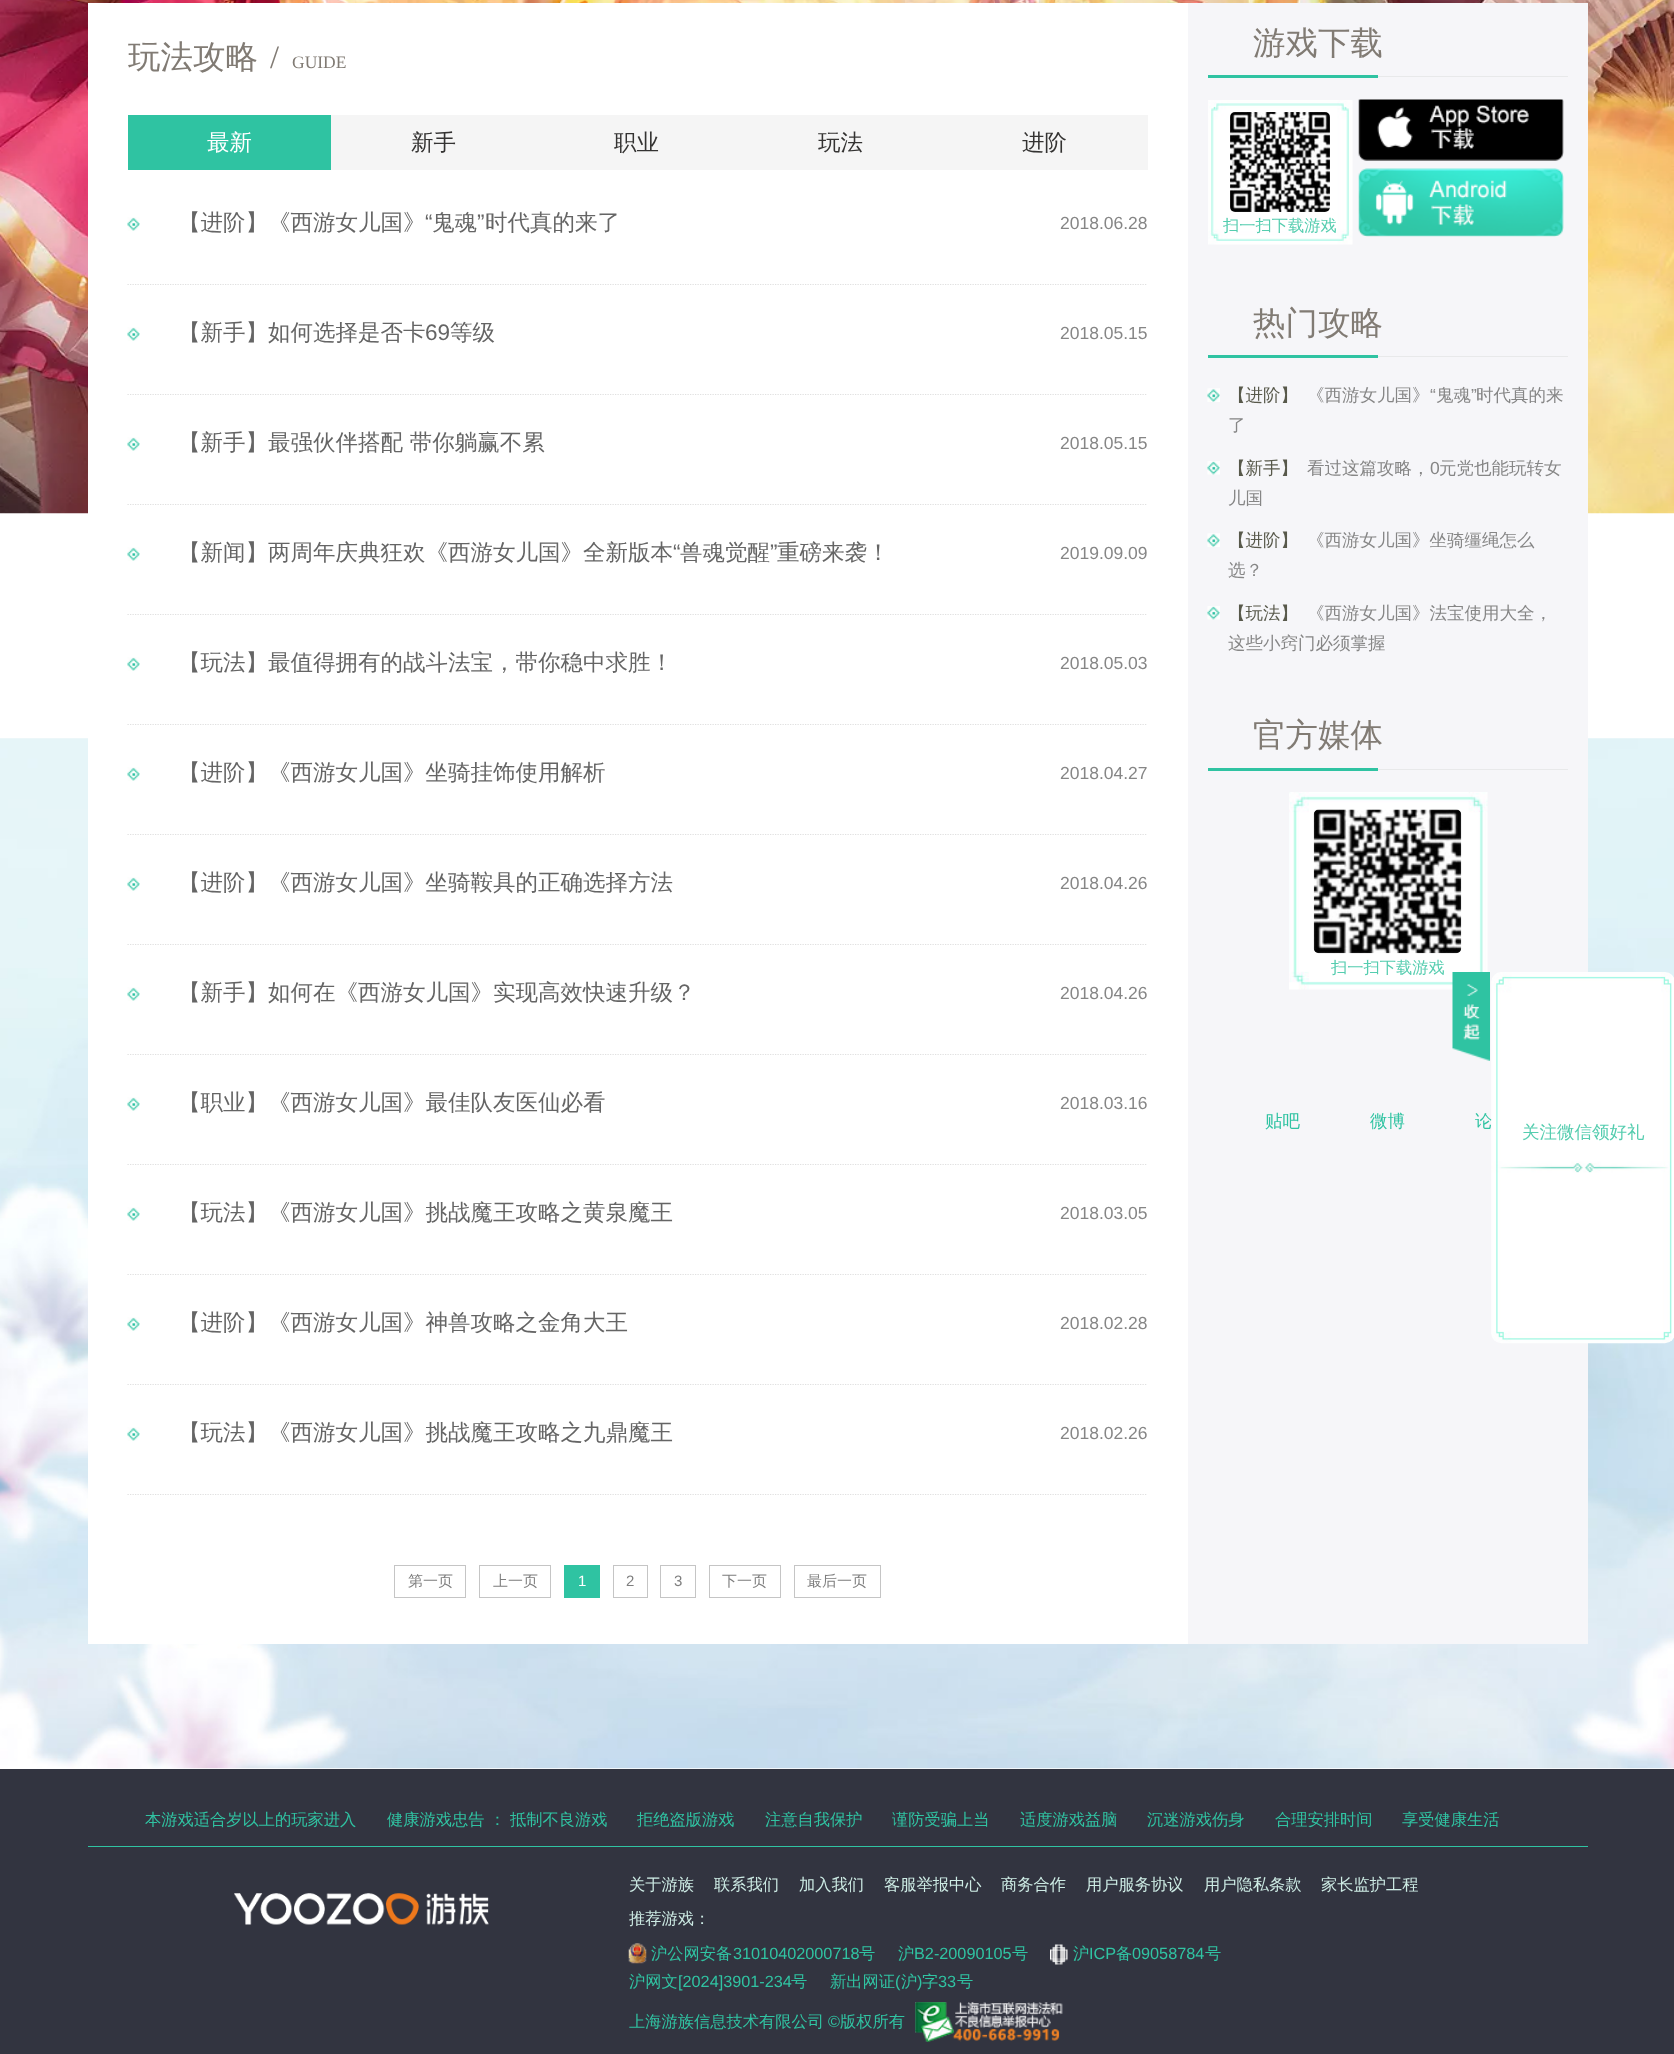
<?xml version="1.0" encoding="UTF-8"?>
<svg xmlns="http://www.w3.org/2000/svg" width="1674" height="2054">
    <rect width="100%" height="100%" fill="#FFFFFF"/>
    <image x="0" y="0" width="1674" height="514" href="img_01.png"/>
    <image x="0" y="738" width="1674" height="1031" href="img_02.png"/>
    <rect x="88" y="3" width="1100" height="1641" fill="#FFFFFF"/>
    <text x="128" y="68" font-family="WenQuanYi Zen Hei" font-size="32.5" font-weight="500" fill="#817B74">玩法攻略</text>
    <text x="270" y="68" font-family="Liberation Serif" font-size="32.5" fill="#817B74">/</text>
    <text x="292" y="68" font-family="Liberation Serif" font-size="17.5" fill="#817B74">GUIDE</text>
    <rect x="331" y="115" width="817" height="55" fill="#F5F5F5"/>
    <rect x="128" y="115" width="203" height="55" fill="#2FC3A2"/>
    <text x="207" y="150" font-family="WenQuanYi Zen Hei" font-size="22.5" font-weight="500" fill="#FFFFFF">最新</text>
    <text x="411" y="150" font-family="WenQuanYi Zen Hei" font-size="22.5" font-weight="500" fill="#343332">新手</text>
    <text x="614" y="150" font-family="WenQuanYi Zen Hei" font-size="22.5" font-weight="500" fill="#343332">职业</text>
    <text x="818" y="150" font-family="WenQuanYi Zen Hei" font-size="22.5" font-weight="500" fill="#343332">玩法</text>
    <text x="1022" y="150" font-family="WenQuanYi Zen Hei" font-size="22.5" font-weight="500" fill="#343332">进阶</text>
    <image x="127" y="217" width="13" height="14" href="img_03.png"/>
    <path d="M 127.5 284.5 H 1147.5" fill="none" stroke="#E0E0E0" stroke-width="1.2" stroke-dasharray="1.25 1.25"/>
    <text x="178" y="230" font-family="WenQuanYi Zen Hei" font-size="22.5" font-weight="500" fill="#656565">【进阶】《西游女儿国》</text>
    <text x="425" y="230" font-family="Liberation Sans" font-size="22.5" fill="#656565">“</text>
    <text x="432" y="230" font-family="WenQuanYi Zen Hei" font-size="22.5" font-weight="500" fill="#656565">鬼魂</text>
    <text x="477" y="230" font-family="Liberation Sans" font-size="22.5" fill="#656565">”</text>
    <text x="485" y="230" font-family="WenQuanYi Zen Hei" font-size="22.5" font-weight="500" fill="#656565">时代真的来了</text>
    <text x="1060" y="229" font-family="Liberation Sans" font-size="17.5" fill="#868686">2018.06.28</text>
    <image x="127" y="327" width="13" height="14" href="img_03.png"/>
    <path d="M 127.5 394.5 H 1147.5" fill="none" stroke="#E0E0E0" stroke-width="1.2" stroke-dasharray="1.25 1.25"/>
    <text x="178" y="340" font-family="WenQuanYi Zen Hei" font-size="22.5" font-weight="500" fill="#656565">【新手】如何选择是否卡</text>
    <text x="425" y="340" font-family="Liberation Sans" font-size="22.5" fill="#656565">69</text>
    <text x="450" y="340" font-family="WenQuanYi Zen Hei" font-size="22.5" font-weight="500" fill="#656565">等级</text>
    <text x="1060" y="339" font-family="Liberation Sans" font-size="17.5" fill="#868686">2018.05.15</text>
    <image x="127" y="437" width="13" height="14" href="img_03.png"/>
    <path d="M 127.5 504.5 H 1147.5" fill="none" stroke="#E0E0E0" stroke-width="1.2" stroke-dasharray="1.25 1.25"/>
    <text x="178" y="450" font-family="WenQuanYi Zen Hei" font-size="22.5" font-weight="500" fill="#656565">【新手】</text>
    <text x="268" y="450" font-family="WenQuanYi Zen Hei" font-size="22.5" font-weight="500" fill="#656565">最强伙伴搭配 带你躺赢不累</text>
    <text x="1060" y="449" font-family="Liberation Sans" font-size="17.5" fill="#868686">2018.05.15</text>
    <image x="127" y="547" width="13" height="14" href="img_03.png"/>
    <path d="M 127.5 614.5 H 1147.5" fill="none" stroke="#E0E0E0" stroke-width="1.2" stroke-dasharray="1.25 1.25"/>
    <text x="178" y="560" font-family="WenQuanYi Zen Hei" font-size="22.5" font-weight="500" fill="#656565">【新闻】两周年庆典狂欢《西游女儿国》全新版本</text>
    <text x="673" y="560" font-family="Liberation Sans" font-size="22.5" fill="#656565">“</text>
    <text x="680" y="560" font-family="WenQuanYi Zen Hei" font-size="22.5" font-weight="500" fill="#656565">兽魂觉醒</text>
    <text x="770" y="560" font-family="Liberation Sans" font-size="22.5" fill="#656565">”</text>
    <text x="777" y="560" font-family="WenQuanYi Zen Hei" font-size="22.5" font-weight="500" fill="#656565">重磅来袭！</text>
    <text x="1060" y="559" font-family="Liberation Sans" font-size="17.5" fill="#868686">2019.09.09</text>
    <image x="127" y="657" width="13" height="14" href="img_04.png"/>
    <path d="M 127.5 724.5 H 1147.5" fill="none" stroke="#E0E0E0" stroke-width="1.2" stroke-dasharray="1.25 1.25"/>
    <text x="178" y="670" font-family="WenQuanYi Zen Hei" font-size="22.5" font-weight="500" fill="#656565">【玩法】最值得拥有的战斗法宝，带你稳中求胜！</text>
    <text x="1060" y="669" font-family="Liberation Sans" font-size="17.5" fill="#868686">2018.05.03</text>
    <image x="127" y="767" width="13" height="14" href="img_03.png"/>
    <path d="M 127.5 834.5 H 1147.5" fill="none" stroke="#E0E0E0" stroke-width="1.2" stroke-dasharray="1.25 1.25"/>
    <text x="178" y="780" font-family="WenQuanYi Zen Hei" font-size="22.5" font-weight="500" fill="#656565">【进阶】《西游女儿国》坐骑挂饰使用解析</text>
    <text x="1060" y="779" font-family="Liberation Sans" font-size="17.5" fill="#868686">2018.04.27</text>
    <image x="127" y="877" width="13" height="14" href="img_03.png"/>
    <path d="M 127.5 944.5 H 1147.5" fill="none" stroke="#E0E0E0" stroke-width="1.2" stroke-dasharray="1.25 1.25"/>
    <text x="178" y="890" font-family="WenQuanYi Zen Hei" font-size="22.5" font-weight="500" fill="#656565">【进阶】《西游女儿国》坐骑鞍具的正确选择方法</text>
    <text x="1060" y="889" font-family="Liberation Sans" font-size="17.5" fill="#868686">2018.04.26</text>
    <image x="127" y="987" width="13" height="14" href="img_03.png"/>
    <path d="M 127.5 1054.5 H 1147.5" fill="none" stroke="#E0E0E0" stroke-width="1.2" stroke-dasharray="1.25 1.25"/>
    <text x="178" y="1000" font-family="WenQuanYi Zen Hei" font-size="22.5" font-weight="500" fill="#656565">【新手】如何在《西游女儿国》实现高效快速升级？</text>
    <text x="1060" y="999" font-family="Liberation Sans" font-size="17.5" fill="#868686">2018.04.26</text>
    <image x="127" y="1097" width="13" height="14" href="img_03.png"/>
    <path d="M 127.5 1164.5 H 1147.5" fill="none" stroke="#E0E0E0" stroke-width="1.2" stroke-dasharray="1.25 1.25"/>
    <text x="178" y="1110" font-family="WenQuanYi Zen Hei" font-size="22.5" font-weight="500" fill="#656565">【职业】《西游女儿国》最佳队友医仙必看</text>
    <text x="1060" y="1109" font-family="Liberation Sans" font-size="17.5" fill="#868686">2018.03.16</text>
    <image x="127" y="1207" width="13" height="14" href="img_03.png"/>
    <path d="M 127.5 1274.5 H 1147.5" fill="none" stroke="#E0E0E0" stroke-width="1.2" stroke-dasharray="1.25 1.25"/>
    <text x="178" y="1220" font-family="WenQuanYi Zen Hei" font-size="22.5" font-weight="500" fill="#656565">【玩法】《西游女儿国》挑战魔王攻略之黄泉魔王</text>
    <text x="1060" y="1219" font-family="Liberation Sans" font-size="17.5" fill="#868686">2018.03.05</text>
    <image x="127" y="1317" width="13" height="14" href="img_03.png"/>
    <path d="M 127.5 1384.5 H 1147.5" fill="none" stroke="#E0E0E0" stroke-width="1.2" stroke-dasharray="1.25 1.25"/>
    <text x="178" y="1330" font-family="WenQuanYi Zen Hei" font-size="22.5" font-weight="500" fill="#656565">【进阶】《西游女儿国》神兽攻略之金角大王</text>
    <text x="1060" y="1329" font-family="Liberation Sans" font-size="17.5" fill="#868686">2018.02.28</text>
    <image x="127" y="1427" width="13" height="14" href="img_03.png"/>
    <path d="M 127.5 1494.5 H 1147.5" fill="none" stroke="#E0E0E0" stroke-width="1.2" stroke-dasharray="1.25 1.25"/>
    <text x="178" y="1440" font-family="WenQuanYi Zen Hei" font-size="22.5" font-weight="500" fill="#656565">【玩法】《西游女儿国》挑战魔王攻略之九鼎魔王</text>
    <text x="1060" y="1439" font-family="Liberation Sans" font-size="17.5" fill="#868686">2018.02.26</text>
    <rect x="394.5" y="1565.5" width="71" height="32" fill="none" stroke="#C5C5C5"/>
    <text x="408" y="1586" font-family="WenQuanYi Zen Hei" font-size="15" font-weight="500" fill="#7E7E7E">第一页</text>
    <rect x="479.5" y="1565.5" width="71" height="32" fill="none" stroke="#C5C5C5"/>
    <text x="493" y="1586" font-family="WenQuanYi Zen Hei" font-size="15" font-weight="500" fill="#7E7E7E">上一页</text>
    <rect x="564" y="1565" width="36" height="33" fill="#2FC3A2"/>
    <text x="578" y="1586" font-family="Liberation Sans" font-size="15" fill="#FFFFFF">1</text>
    <rect x="613.5" y="1565.5" width="34" height="32" fill="none" stroke="#C5C5C5"/>
    <text x="626" y="1586" font-family="Liberation Sans" font-size="15" fill="#7E7E7E">2</text>
    <rect x="660.5" y="1565.5" width="35" height="32" fill="none" stroke="#C5C5C5"/>
    <text x="674" y="1586" font-family="Liberation Sans" font-size="15" fill="#7E7E7E">3</text>
    <rect x="709.5" y="1565.5" width="71" height="32" fill="none" stroke="#C5C5C5"/>
    <text x="722" y="1586" font-family="WenQuanYi Zen Hei" font-size="15" font-weight="500" fill="#7E7E7E">下一页</text>
    <rect x="794.5" y="1565.5" width="86" height="32" fill="none" stroke="#C5C5C5"/>
    <text x="807" y="1586" font-family="WenQuanYi Zen Hei" font-size="15" font-weight="500" fill="#7E7E7E">最后一页</text>
    <rect x="1188" y="3" width="400" height="1641" fill="#F6F6F9"/>
    <rect x="1378" y="76" width="190" height="1" fill="#E8E9EA"/>
    <text x="1253" y="54" font-family="WenQuanYi Zen Hei" font-size="32.5" font-weight="500" fill="#817B74">游戏下载</text>
    <rect x="1208" y="75" width="170" height="3" fill="#2FC3A2"/>
    <image x="1208" y="100" width="145" height="145" href="img_05.png"/>
    <image x="1230" y="112" width="100" height="100" href="img_06.png"/>
    <text x="1223" y="231" font-family="WenQuanYi Zen Hei" font-size="16.25" font-weight="500" fill="#55CDAF">扫一扫下载游戏</text>
    <image x="1358" y="99" width="206" height="62" href="img_07.png"/>
    <image x="1358" y="168" width="206" height="69" href="img_08.png"/>
    <rect x="1378" y="356" width="190" height="1" fill="#E8E9EA"/>
    <text x="1253" y="334" font-family="WenQuanYi Zen Hei" font-size="32.5" font-weight="500" fill="#817B74">热门攻略</text>
    <rect x="1208" y="355" width="170" height="3" fill="#2FC3A2"/>
    <image x="1207" y="388" width="13" height="14" href="img_09.png"/>
    <text x="1228" y="401" font-family="WenQuanYi Zen Hei" font-size="17.5" font-weight="500" fill="#58594B">【进阶】</text>
    <text x="1307" y="401" font-family="WenQuanYi Zen Hei" font-size="17.5" font-weight="500" fill="#868686">《西游女儿国》</text>
    <text x="1430" y="401" font-family="Liberation Sans" font-size="17.5" fill="#868686">“</text>
    <text x="1436" y="401" font-family="WenQuanYi Zen Hei" font-size="17.5" font-weight="500" fill="#868686">鬼魂</text>
    <text x="1471" y="401" font-family="Liberation Sans" font-size="17.5" fill="#868686">”</text>
    <text x="1476" y="401" font-family="WenQuanYi Zen Hei" font-size="17.5" font-weight="500" fill="#868686">时代真的来</text>
    <text x="1228" y="431" font-family="WenQuanYi Zen Hei" font-size="17.5" font-weight="500" fill="#868686">了</text>
    <image x="1207" y="461" width="13" height="14" href="img_10.png"/>
    <text x="1228" y="474" font-family="WenQuanYi Zen Hei" font-size="17.5" font-weight="500" fill="#58594B">【新手】</text>
    <text x="1307" y="474" font-family="WenQuanYi Zen Hei" font-size="17.5" font-weight="500" fill="#868686">看过这篇攻略，</text>
    <text x="1430" y="474" font-family="Liberation Sans" font-size="17.5" fill="#868686">0</text>
    <text x="1439" y="474" font-family="WenQuanYi Zen Hei" font-size="17.5" font-weight="500" fill="#868686">元党也能玩转女</text>
    <text x="1228" y="504" font-family="WenQuanYi Zen Hei" font-size="17.5" font-weight="500" fill="#868686">儿国</text>
    <image x="1207" y="533" width="13" height="14" href="img_09.png"/>
    <text x="1228" y="546" font-family="WenQuanYi Zen Hei" font-size="17.5" font-weight="500" fill="#58594B">【进阶】</text>
    <text x="1307" y="546" font-family="WenQuanYi Zen Hei" font-size="17.5" font-weight="500" fill="#868686">《西游女儿国》坐骑缰绳怎么</text>
    <text x="1228" y="576" font-family="WenQuanYi Zen Hei" font-size="17.5" font-weight="500" fill="#868686">选？</text>
    <image x="1207" y="606" width="13" height="14" href="img_10.png"/>
    <text x="1228" y="619" font-family="WenQuanYi Zen Hei" font-size="17.5" font-weight="500" fill="#58594B">【玩法】</text>
    <text x="1307" y="619" font-family="WenQuanYi Zen Hei" font-size="17.5" font-weight="500" fill="#868686">《西游女儿国》法宝使用大全，</text>
    <text x="1228" y="649" font-family="WenQuanYi Zen Hei" font-size="17.5" font-weight="500" fill="#868686">这些小窍门必须掌握</text>
    <rect x="1378" y="769" width="190" height="1" fill="#E8E9EA"/>
    <text x="1253" y="746" font-family="WenQuanYi Zen Hei" font-size="32.5" font-weight="500" fill="#817B74">官方媒体</text>
    <rect x="1208" y="768" width="170" height="3" fill="#2FC3A2"/>
    <image x="1289" y="792" width="199" height="198" href="img_11.png"/>
    <image x="1313" y="809" width="149" height="145" href="img_12.png"/>
    <text x="1331" y="973" font-family="WenQuanYi Zen Hei" font-size="16.25" font-weight="500" fill="#55CDAF">扫一扫下载游戏</text>
    <text x="1265" y="1127" font-family="WenQuanYi Zen Hei" font-size="17.5" font-weight="500" fill="#30C3A2">贴吧</text>
    <text x="1370" y="1127" font-family="WenQuanYi Zen Hei" font-size="17.5" font-weight="500" fill="#30C3A2">微博</text>
    <text x="1475" y="1127" font-family="WenQuanYi Zen Hei" font-size="17.5" font-weight="500" fill="#30C3A2">论</text>
    <image x="1452" y="972" width="38" height="89" href="img_13.png"/>
    <image x="1491" y="972" width="183" height="372" href="img_14.png"/>
    <text x="1522" y="1138" font-family="WenQuanYi Zen Hei" font-size="17.5" font-weight="500" fill="#55CDAF">关注微信领好礼</text>
    <rect x="0" y="1769" width="1674" height="285" fill="#323440"/>
    <rect x="88" y="1846" width="1500" height="1" fill="#30C3A2"/>
    <text x="145" y="1825" font-family="WenQuanYi Zen Hei" font-size="16.25" font-weight="500" fill="#30C3A2">本游戏适合岁以上的玩家进入</text>
    <text x="387" y="1825" font-family="WenQuanYi Zen Hei" font-size="16.25" font-weight="500" fill="#30C3A2">健康游戏忠告 ：</text>
    <text x="510" y="1825" font-family="WenQuanYi Zen Hei" font-size="16.25" font-weight="500" fill="#30C3A2">抵制不良游戏</text>
    <text x="637" y="1825" font-family="WenQuanYi Zen Hei" font-size="16.25" font-weight="500" fill="#30C3A2">拒绝盗版游戏</text>
    <text x="765" y="1825" font-family="WenQuanYi Zen Hei" font-size="16.25" font-weight="500" fill="#30C3A2">注意自我保护</text>
    <text x="892" y="1825" font-family="WenQuanYi Zen Hei" font-size="16.25" font-weight="500" fill="#30C3A2">谨防受骗上当</text>
    <text x="1020" y="1825" font-family="WenQuanYi Zen Hei" font-size="16.25" font-weight="500" fill="#30C3A2">适度游戏益脑</text>
    <text x="1147" y="1825" font-family="WenQuanYi Zen Hei" font-size="16.25" font-weight="500" fill="#30C3A2">沉迷游戏伤身</text>
    <text x="1275" y="1825" font-family="WenQuanYi Zen Hei" font-size="16.25" font-weight="500" fill="#30C3A2">合理安排时间</text>
    <text x="1402" y="1825" font-family="WenQuanYi Zen Hei" font-size="16.25" font-weight="500" fill="#30C3A2">享受健康生活</text>
    <text x="629" y="1890" font-family="WenQuanYi Zen Hei" font-size="16.25" font-weight="500" fill="#CDEBE4">关于游族</text>
    <text x="714" y="1890" font-family="WenQuanYi Zen Hei" font-size="16.25" font-weight="500" fill="#CDEBE4">联系我们</text>
    <text x="799" y="1890" font-family="WenQuanYi Zen Hei" font-size="16.25" font-weight="500" fill="#CDEBE4">加入我们</text>
    <text x="884" y="1890" font-family="WenQuanYi Zen Hei" font-size="16.25" font-weight="500" fill="#CDEBE4">客服举报中心</text>
    <text x="1001" y="1890" font-family="WenQuanYi Zen Hei" font-size="16.25" font-weight="500" fill="#CDEBE4">商务合作</text>
    <text x="1086" y="1890" font-family="WenQuanYi Zen Hei" font-size="16.25" font-weight="500" fill="#CDEBE4">用户服务协议</text>
    <text x="1204" y="1890" font-family="WenQuanYi Zen Hei" font-size="16.25" font-weight="500" fill="#CDEBE4">用户隐私条款</text>
    <text x="1321" y="1890" font-family="WenQuanYi Zen Hei" font-size="16.25" font-weight="500" fill="#CDEBE4">家长监护工程</text>
    <image x="234" y="1893" width="255" height="32" href="img_15.png"/>
    <text x="629" y="1924" font-family="WenQuanYi Zen Hei" font-size="16.25" font-weight="500" fill="#CDEBE4">推荐游戏：</text>
    <image x="628" y="1943" width="19" height="21" href="img_16.png"/>
    <text x="651" y="1959" font-family="WenQuanYi Zen Hei" font-size="16.25" font-weight="500" fill="#30C3A2">沪公网安备</text>
    <text x="733" y="1959" font-family="Liberation Sans" font-size="16.25" fill="#30C3A2">31010402000718</text>
    <text x="859" y="1959" font-family="WenQuanYi Zen Hei" font-size="16.25" font-weight="500" fill="#30C3A2">号</text>
    <text x="898" y="1959" font-family="WenQuanYi Zen Hei" font-size="16.25" font-weight="500" fill="#30C3A2">沪</text>
    <text x="914" y="1959" font-family="Liberation Sans" font-size="16.25" fill="#30C3A2">B2-20090105</text>
    <text x="1012" y="1959" font-family="WenQuanYi Zen Hei" font-size="16.25" font-weight="500" fill="#30C3A2">号</text>
    <image x="1050" y="1944" width="18" height="21" href="img_17.png"/>
    <text x="1073" y="1959" font-family="WenQuanYi Zen Hei" font-size="16.25" font-weight="500" fill="#30C3A2">沪</text>
    <text x="1089" y="1959" font-family="Liberation Sans" font-size="16.25" fill="#30C3A2">ICP</text>
    <text x="1116" y="1959" font-family="WenQuanYi Zen Hei" font-size="16.25" font-weight="500" fill="#30C3A2">备</text>
    <text x="1132" y="1959" font-family="Liberation Sans" font-size="16.25" fill="#30C3A2">09058784</text>
    <text x="1205" y="1959" font-family="WenQuanYi Zen Hei" font-size="16.25" font-weight="500" fill="#30C3A2">号</text>
    <text x="629" y="1987" font-family="WenQuanYi Zen Hei" font-size="16.25" font-weight="500" fill="#30C3A2">沪网文</text>
    <text x="678" y="1987" font-family="Liberation Sans" font-size="16.25" fill="#30C3A2">[2024]3901-234</text>
    <text x="791" y="1987" font-family="WenQuanYi Zen Hei" font-size="16.25" font-weight="500" fill="#30C3A2">号</text>
    <text x="830" y="1987" font-family="WenQuanYi Zen Hei" font-size="16.25" font-weight="500" fill="#30C3A2">新出网证</text>
    <text x="895" y="1987" font-family="Liberation Sans" font-size="16.25" fill="#30C3A2">(</text>
    <text x="901" y="1987" font-family="WenQuanYi Zen Hei" font-size="16.25" font-weight="500" fill="#30C3A2">沪</text>
    <text x="917" y="1987" font-family="Liberation Sans" font-size="16.25" fill="#30C3A2">)</text>
    <text x="922" y="1987" font-family="WenQuanYi Zen Hei" font-size="16.25" font-weight="500" fill="#30C3A2">字</text>
    <text x="938" y="1987" font-family="Liberation Sans" font-size="16.25" fill="#30C3A2">33</text>
    <text x="957" y="1987" font-family="WenQuanYi Zen Hei" font-size="16.25" font-weight="500" fill="#30C3A2">号</text>
    <text x="629" y="2027" font-family="WenQuanYi Zen Hei" font-size="16.25" font-weight="500" fill="#30C3A2">上海游族信息技术有限公司</text>
    <text x="828" y="2027" font-family="Liberation Sans" font-size="16.25" fill="#30C3A2">©</text>
    <text x="840" y="2027" font-family="WenQuanYi Zen Hei" font-size="16.25" font-weight="500" fill="#30C3A2">版权所有</text>
    <image x="915" y="2002" width="148" height="40" href="img_18.png"/>
</svg>
